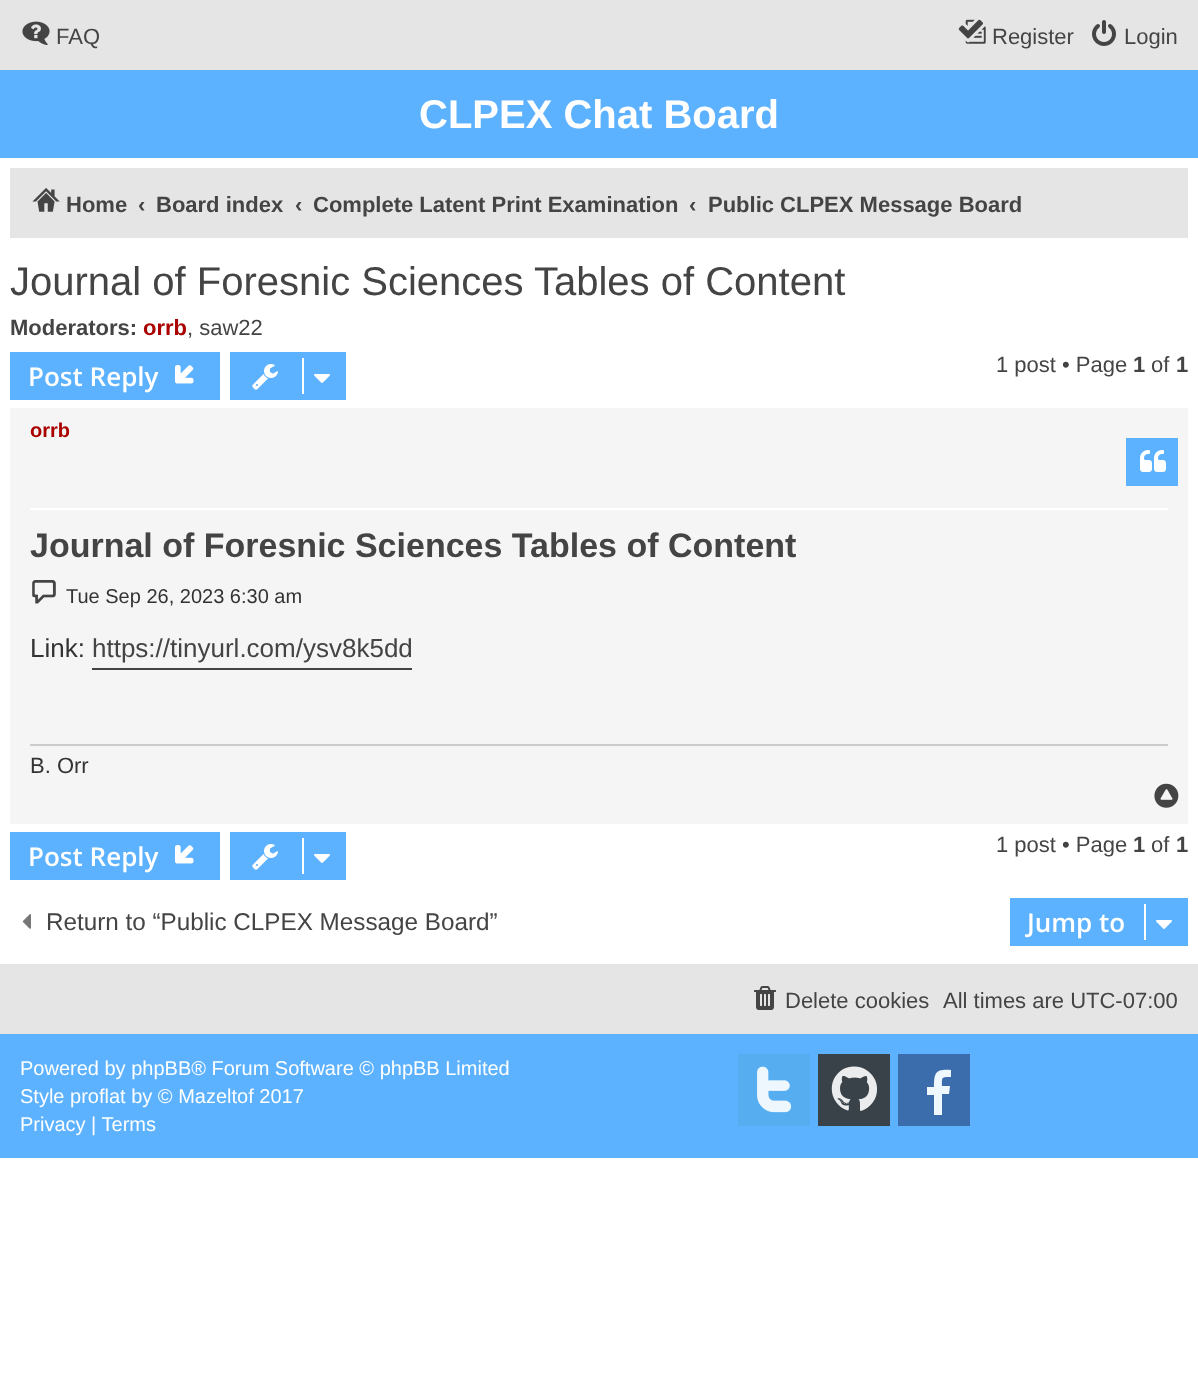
<?xml version="1.0" encoding="UTF-8"?>
<svg xmlns="http://www.w3.org/2000/svg" width="1198" height="1397">
    <rect width="100%" height="100%" fill="#FFFFFF"/>
    <rect x="0" y="0" width="1198" height="70" fill="#E5E5E5"/>
    <image x="22" y="21" width="28" height="24" href="img_01.png"/>
    <text x="56" y="44" font-family="Liberation Sans" font-size="22" fill="#444444">FAQ</text>
    <image x="958" y="19" width="28" height="25" href="img_02.png"/>
    <text x="992" y="44" font-family="Liberation Sans" font-size="22" fill="#444444">Register</text>
    <image x="1092" y="20" width="24" height="26" href="img_03.png"/>
    <text x="1124" y="44" font-family="Liberation Sans" font-size="22" fill="#444444">Login</text>
    <rect x="0" y="70" width="1198" height="88" fill="#5DB2FF"/>
    <text x="419" y="128" font-family="Liberation Sans" font-size="40" font-weight="700" fill="#FFFFFF">CLPEX Chat Board</text>
    <rect x="10" y="168" width="1178" height="70" fill="#E5E5E5"/>
    <image x="32" y="188" width="28" height="24" href="img_04.png"/>
    <text x="66" y="212" font-family="Liberation Sans" font-size="22" font-weight="700" fill="#444444">Home</text>
    <text x="138" y="212" font-family="Liberation Sans" font-size="22" font-weight="700" fill="#444444">‹</text>
    <text x="156" y="212" font-family="Liberation Sans" font-size="22" font-weight="700" fill="#444444">Board index</text>
    <text x="295" y="212" font-family="Liberation Sans" font-size="22" font-weight="700" fill="#444444">‹</text>
    <text x="313" y="212" font-family="Liberation Sans" font-size="22" font-weight="700" fill="#444444">Complete Latent Print Examination</text>
    <text x="689" y="212" font-family="Liberation Sans" font-size="22" font-weight="700" fill="#444444">‹</text>
    <text x="708" y="212" font-family="Liberation Sans" font-size="22" font-weight="700" fill="#444444">Public CLPEX Message Board</text>
    <text x="10" y="295" font-family="Liberation Sans" font-size="40" fill="#444444">Journal of Foresnic Sciences Tables of Content</text>
    <text x="10" y="335" font-family="Liberation Sans" font-size="22" font-weight="700" fill="#444444">Moderators:</text>
    <text x="143" y="335" font-family="Liberation Sans" font-size="22" font-weight="700" fill="#AA0000">orrb</text>
    <text x="187" y="335" font-family="Liberation Sans" font-size="22" fill="#444444">, saw22</text>
    <rect x="10" y="352" width="210" height="48" fill="#5DB2FF"/>
    <text x="28" y="386" font-family="Open Sans" font-size="26" font-weight="600" fill="#FFFFFF">Post Reply</text>
    <image x="175" y="365" width="19" height="19" href="img_05.png"/>
    <rect x="230" y="352" width="116" height="48" fill="#5DB2FF"/>
    <image x="252" y="364" width="26" height="26" href="img_06.png"/>
    <rect x="302" y="358" width="2" height="36" fill="#FFFFFF"/>
    <image x="314" y="374" width="16" height="9" href="img_07.png"/>
    <text x="996" y="372" font-family="Liberation Sans" font-size="22" fill="#444444">1 post • Page</text>
    <text x="1133" y="372" font-family="Liberation Sans" font-size="22" font-weight="700" fill="#444444">1</text>
    <text x="1151" y="372" font-family="Liberation Sans" font-size="22" fill="#444444">of</text>
    <text x="1176" y="372" font-family="Liberation Sans" font-size="22" font-weight="700" fill="#444444">1</text>
    <rect x="10" y="408" width="1178" height="416" fill="#F5F5F5"/>
    <rect x="30" y="508" width="1138" height="2" fill="#FFFFFF"/>
    <text x="30" y="437" font-family="Liberation Sans" font-size="20" font-weight="700" fill="#AA0000">orrb</text>
    <rect x="1126" y="438" width="52" height="48" fill="#5DB2FF"/>
    <image x="1140" y="450" width="26" height="22" href="img_08.png"/>
    <text x="30" y="557" font-family="Liberation Sans" font-size="34" font-weight="700" fill="#444444">Journal of Foresnic Sciences Tables of Content</text>
    <image x="32" y="580" width="24" height="24" href="img_09.png"/>
    <text x="66" y="603" font-family="Liberation Sans" font-size="20" fill="#333333">Tue Sep 26, 2023 6:30 am</text>
    <text x="30" y="657" font-family="Liberation Sans" font-size="26" fill="#333333">Link:</text>
    <rect x="92" y="668" width="320" height="2" fill="#444444"/>
    <text x="92" y="657" font-family="Liberation Sans" font-size="26" fill="#444444">https://tinyurl.com/ysv8k5dd</text>
    <rect x="30" y="744" width="1138" height="2" fill="#CCCCCC"/>
    <text x="30" y="773" font-family="Liberation Sans" font-size="22" fill="#333333">B. Orr</text>
    <image x="1154" y="783" width="25" height="25" href="img_10.png"/>
    <rect x="10" y="832" width="210" height="48" fill="#5DB2FF"/>
    <text x="28" y="866" font-family="Open Sans" font-size="26" font-weight="600" fill="#FFFFFF">Post Reply</text>
    <image x="175" y="845" width="19" height="19" href="img_05.png"/>
    <rect x="230" y="832" width="116" height="48" fill="#5DB2FF"/>
    <image x="252" y="844" width="26" height="26" href="img_06.png"/>
    <rect x="302" y="838" width="2" height="36" fill="#FFFFFF"/>
    <image x="314" y="854" width="16" height="9" href="img_07.png"/>
    <text x="996" y="852" font-family="Liberation Sans" font-size="22" fill="#444444">1 post • Page</text>
    <text x="1133" y="852" font-family="Liberation Sans" font-size="22" font-weight="700" fill="#444444">1</text>
    <text x="1151" y="852" font-family="Liberation Sans" font-size="22" fill="#444444">of</text>
    <text x="1176" y="852" font-family="Liberation Sans" font-size="22" font-weight="700" fill="#444444">1</text>
    <image x="22" y="914" width="9" height="15" href="img_11.png"/>
    <text x="46" y="930" font-family="Liberation Sans" font-size="24.25" fill="#444444">Return to “Public CLPEX Message Board”</text>
    <rect x="1010" y="898" width="178" height="48" fill="#5DB2FF"/>
    <text x="1027" y="932" font-family="Open Sans" font-size="26" font-weight="600" fill="#FFFFFF">Jump to</text>
    <rect x="1144" y="904" width="2" height="36" fill="#FFFFFF"/>
    <image x="1156" y="920" width="16" height="9" href="img_07.png"/>
    <rect x="0" y="964" width="1198" height="70" fill="#E5E5E5"/>
    <image x="754" y="986" width="22" height="24" href="img_12.png"/>
    <text x="785" y="1008" font-family="Liberation Sans" font-size="22" fill="#444444">Delete cookies</text>
    <text x="943" y="1008" font-family="Liberation Sans" font-size="22" fill="#444444">All times are UTC-07:00</text>
    <rect x="0" y="1034" width="1198" height="124" fill="#5DB2FF"/>
    <text font-family="Liberation Sans" font-size="20" fill="#FFFFFF">
        <tspan x="20" y="1075">Powered by phpBB® Forum Software © phpBB Limited</tspan>
        <tspan x="20" y="1103">Style proflat by © Mazeltof 2017</tspan>
        <tspan x="20" y="1131">Privacy | Terms</tspan>
    </text>
    <rect x="738" y="1054" width="72" height="72" fill="#56ADF0"/>
    <image x="757" y="1066" width="35" height="47" href="img_13.png"/>
    <rect x="818" y="1054" width="72" height="72" fill="#394249"/>
    <image x="831" y="1066" width="47" height="45" href="img_14.png"/>
    <rect x="898" y="1054" width="72" height="72" fill="#3B6DAC"/>
    <path d="M 951 1070 V 1077 C 941 1077 942 1077 942 1086 H 950 L 949 1094 H 942 V 1115 H 934 V 1095 H 927 V 1087 H 934 C 934 1072 936 1069 951 1070 Z" fill="#EFF7FF"/>
</svg>
